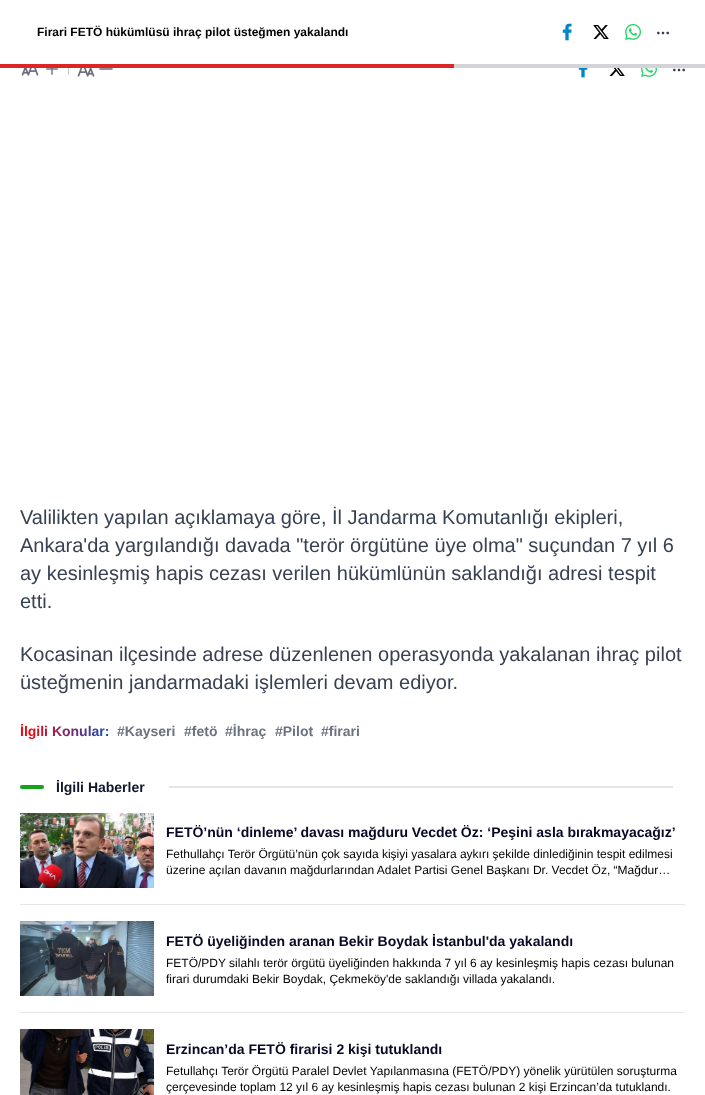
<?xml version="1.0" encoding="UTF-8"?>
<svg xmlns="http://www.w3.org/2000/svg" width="705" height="1095">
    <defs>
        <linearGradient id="g1" gradientUnits="userSpaceOnUse" x1="20" y1="731" x2="109" y2="731"><stop offset="0" stop-color="#FF0101"/><stop offset="1" stop-color="#0D4ABC"/></linearGradient>
    </defs>
    <rect width="100%" height="100%" fill="#FFFFFF"/>
    <rect x="68" y="63" width="1" height="12" rx="0.5" fill="#C7C7CC"/>
    <rect x="68" y="63" width="1" height="1" fill="#FFFFFF"/>
    <text x="37" y="36" font-family="Liberation Sans" font-size="12" font-weight="700" fill="#000000">Firari FETÖ hükümlüsü ihraç pilot üsteğmen yakalandı</text>
    <image x="562" y="23" width="10" height="18" href="img_01.png"/>
    <image x="593" y="25" width="16" height="14" href="img_02.png"/>
    <image x="625" y="24" width="16" height="16" href="img_03.png"/>
    <image x="657" y="31" width="12" height="4" href="img_04.png"/>
    <rect x="454" y="64" width="251" height="4" fill="#D4D4D8"/>
    <rect x="0" y="64" width="454" height="4" fill="#DC2626"/>
    <image x="21" y="68" width="18" height="8" href="img_05.png"/>
    <image x="46" y="68" width="12" height="7" href="img_06.png"/>
    <image x="77" y="68" width="18" height="9" href="img_07.png"/>
    <path d="M 100 69 H 112" fill="none" stroke="#6B6B7D" stroke-width="1.5" stroke-linecap="round"/>
    <image x="578" y="68" width="10" height="10" href="img_08.png"/>
    <image x="609" y="68" width="16" height="8" href="img_09.png"/>
    <image x="641" y="68" width="16" height="9" href="img_10.png"/>
    <image x="673" y="68" width="12" height="4" href="img_04.png"/>
    <text font-family="Liberation Sans" font-size="20" fill="#374151">
        <tspan x="20" y="524">Valilikten yapılan açıklamaya göre, İl Jandarma Komutanlığı ekipleri,</tspan>
        <tspan x="20" y="552">Ankara'da yargılandığı davada "terör örgütüne üye olma" suçundan 7 yıl 6</tspan>
        <tspan x="20" y="580">ay kesinleşmiş hapis cezası verilen hükümlünün saklandığı adresi tespit</tspan>
        <tspan x="20" y="608">etti.</tspan>
    </text>
    <text font-family="Liberation Sans" font-size="20" fill="#374151">
        <tspan x="20" y="661">Kocasinan ilçesinde adrese düzenlenen operasyonda yakalanan ihraç pilot</tspan>
        <tspan x="20" y="689">üsteğmenin jandarmadaki işlemleri devam ediyor.</tspan>
    </text>
    <text x="20" y="736" font-family="Liberation Sans" font-size="14" font-weight="700" fill="url(#g1)">İlgili Konular:</text>
    <text x="117" y="736" font-family="Liberation Sans" font-size="14" font-weight="700" fill="#6B7280">#Kayseri</text>
    <text x="184" y="736" font-family="Liberation Sans" font-size="14" font-weight="700" fill="#6B7280">#fetö</text>
    <text x="225" y="736" font-family="Liberation Sans" font-size="14" font-weight="700" fill="#6B7280">#İhraç</text>
    <text x="275" y="736" font-family="Liberation Sans" font-size="14" font-weight="700" fill="#6B7280">#Pilot</text>
    <text x="321" y="736" font-family="Liberation Sans" font-size="14" font-weight="700" fill="#6B7280">#firari</text>
    <rect x="20" y="785" width="24" height="4" rx="2" fill="#14A41C"/>
    <text x="56" y="792" font-family="Liberation Sans" font-size="14" font-weight="700" fill="#0F172A">İlgili Haberler</text>
    <rect x="169" y="786" width="504" height="2" fill="#E5E5EA"/>
    <image x="20" y="813" width="134" height="75" href="img_11.png"/>
    <text x="166" y="837" font-family="Liberation Sans" font-size="14" font-weight="700" fill="#080827">FETÖ’nün ‘dinleme’ davası mağduru Vecdet Öz: ‘Peşini asla bırakmayacağız’</text>
    <text font-family="Liberation Sans" font-size="12" fill="#000000">
        <tspan x="166" y="858">Fethullahçı Terör Örgütü’nün çok sayıda kişiyi yasalara aykırı şekilde dinlediğinin tespit edilmesi</tspan>
        <tspan x="166" y="874">üzerine açılan davanın mağdurlarından Adalet Partisi Genel Başkanı Dr. Vecdet Öz, “Mağdur…</tspan>
    </text>
    <rect x="20" y="904" width="665" height="1" fill="#E5E5EA"/>
    <image x="20" y="921" width="134" height="75" href="img_12.png"/>
    <text x="166" y="946" font-family="Liberation Sans" font-size="14" font-weight="700" fill="#080827">FETÖ üyeliğinden aranan Bekir Boydak İstanbul'da yakalandı</text>
    <text font-family="Liberation Sans" font-size="12" fill="#000000">
        <tspan x="166" y="967">FETÖ/PDY silahlı terör örgütü üyeliğinden hakkında 7 yıl 6 ay kesinleşmiş hapis cezası bulunan</tspan>
        <tspan x="166" y="983">firari durumdaki Bekir Boydak, Çekmeköy'de saklandığı villada yakalandı.</tspan>
    </text>
    <rect x="20" y="1012" width="665" height="1" fill="#E5E5EA"/>
    <image x="20" y="1029" width="134" height="66" href="img_13.png"/>
    <text x="166" y="1054" font-family="Liberation Sans" font-size="14" font-weight="700" fill="#080827">Erzincan’da FETÖ firarisi 2 kişi tutuklandı</text>
    <text font-family="Liberation Sans" font-size="12" fill="#000000">
        <tspan x="166" y="1075">Fetullahçı Terör Örgütü Paralel Devlet Yapılanmasına (FETÖ/PDY) yönelik yürütülen soruşturma</tspan>
        <tspan x="166" y="1091">çerçevesinde toplam 12 yıl 6 ay kesinleşmiş hapis cezası bulunan 2 kişi Erzincan’da tutuklandı.</tspan>
    </text>
</svg>
